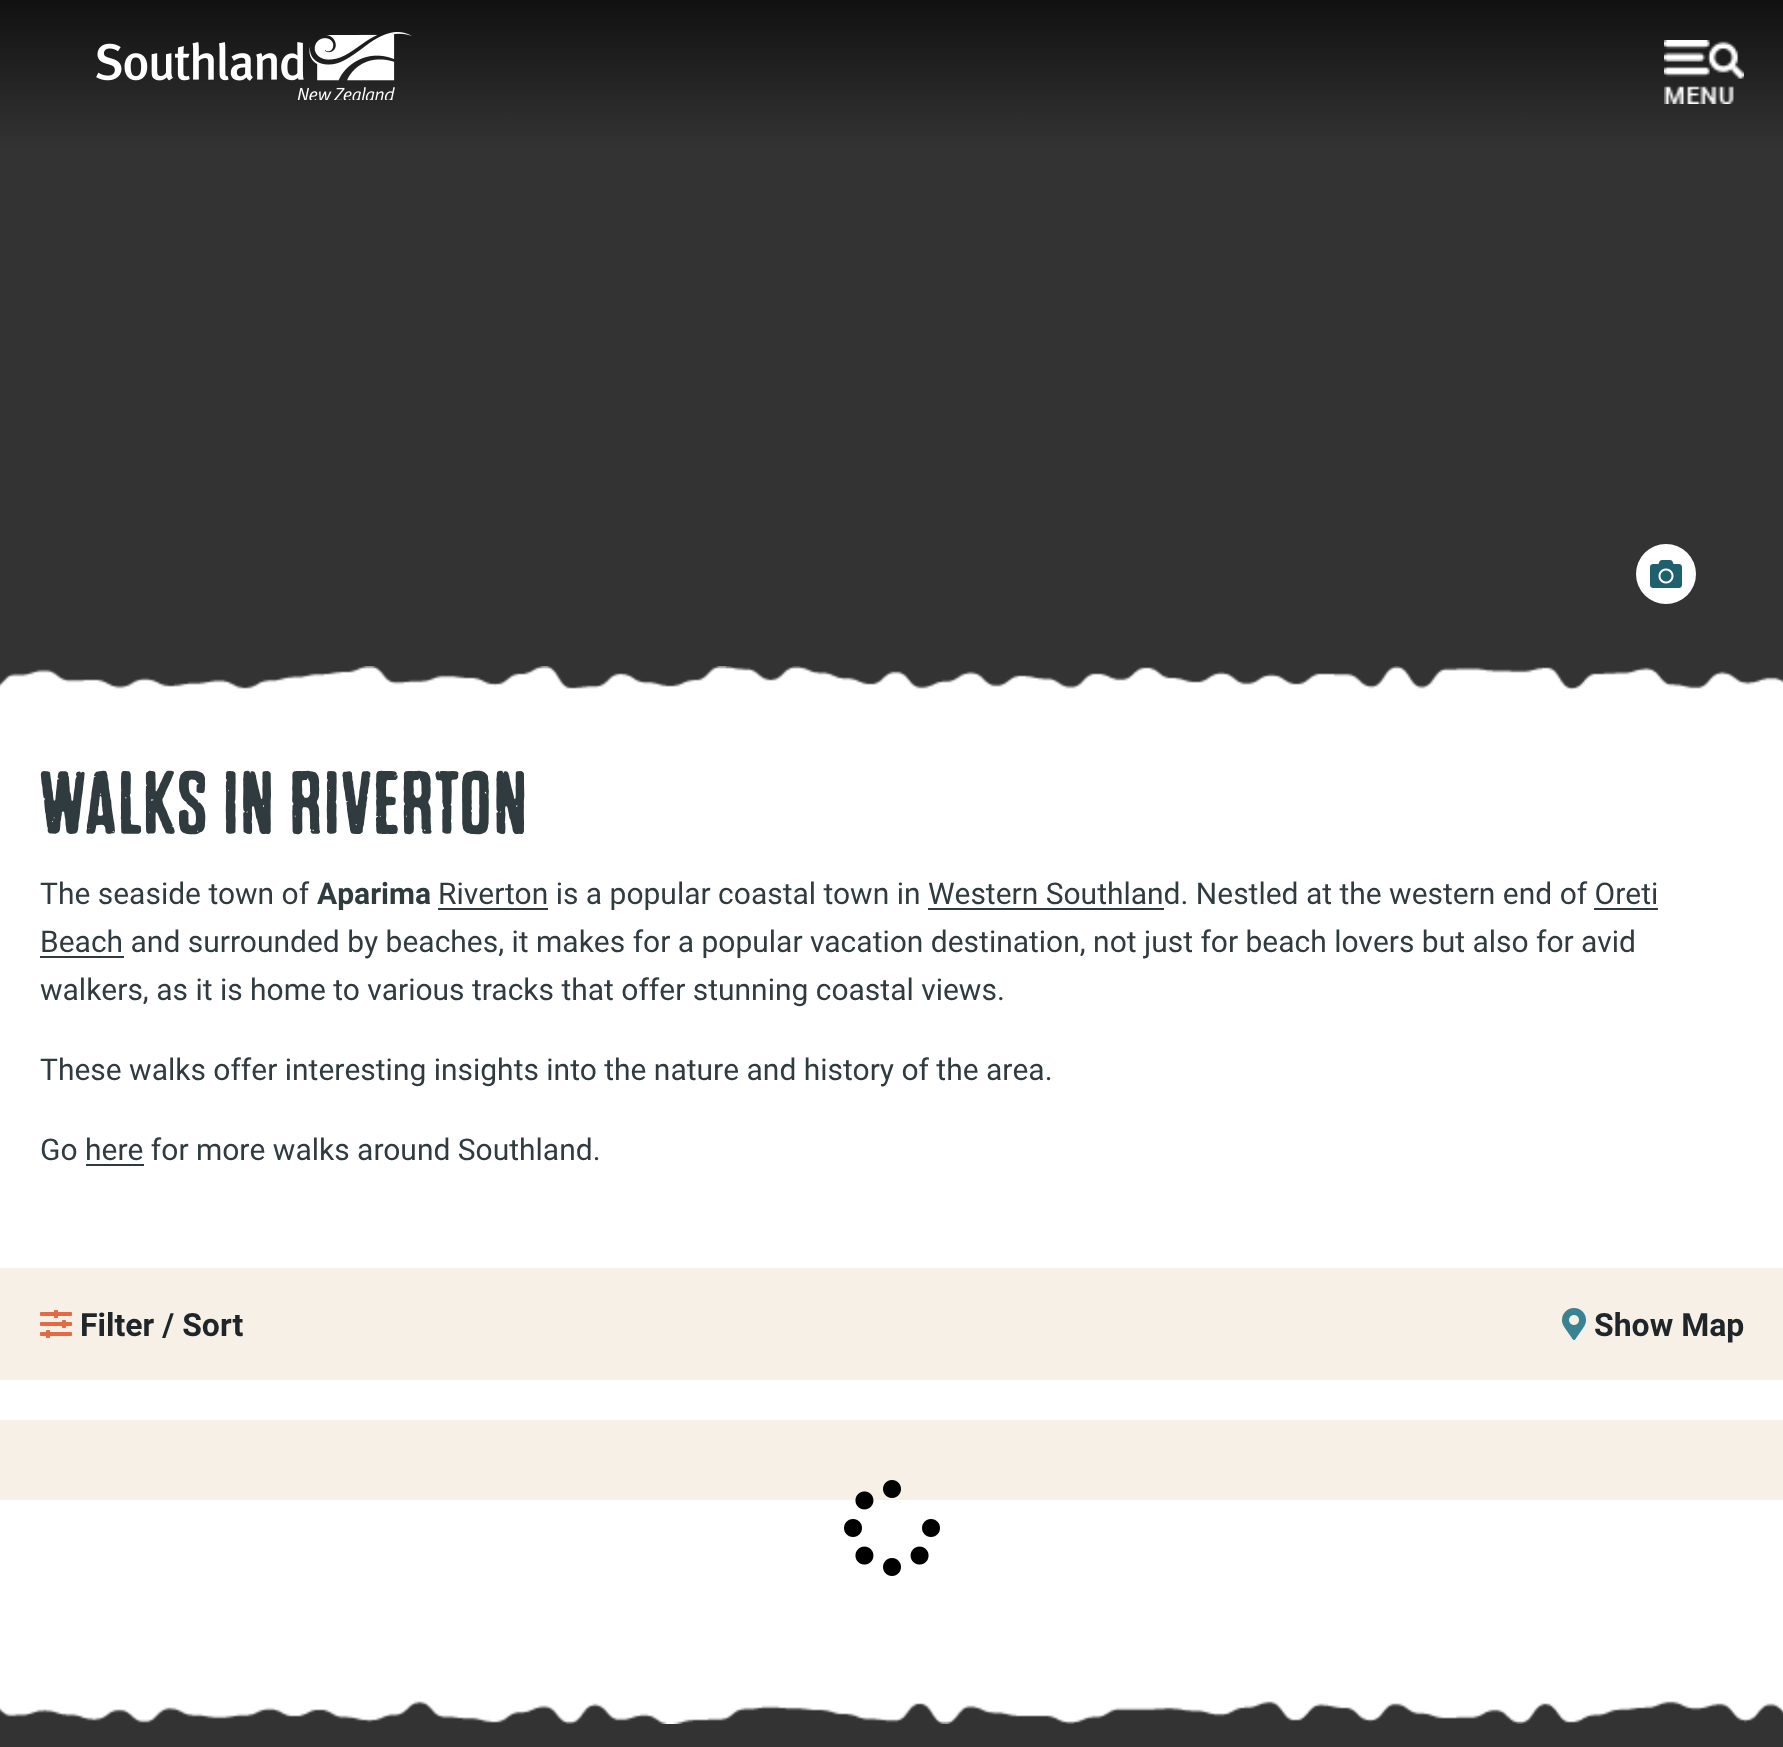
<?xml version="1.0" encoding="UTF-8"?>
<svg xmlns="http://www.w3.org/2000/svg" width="1783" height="1747">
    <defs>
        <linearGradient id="g1" gradientUnits="userSpaceOnUse" x1="892" y1="0" x2="892" y2="148"><stop offset="0" stop-color="#111111"/><stop offset="1" stop-color="#333333"/></linearGradient>
    </defs>
    <rect width="100%" height="100%" fill="#FFFFFF"/>
    <rect x="0" y="0" width="1783" height="148" fill="url(#g1)"/>
    <image x="96" y="32" width="316" height="68" href="img_01.png"/>
    <image x="1664" y="40" width="80" height="64" href="img_02.png"/>
    <rect x="0" y="148" width="1783" height="543" fill="#333333"/>
    <circle cx="1666" cy="574" r="30" fill="#FFFFFF"/>
    <image x="1650" y="560" width="32" height="28" href="img_03.png"/>
    <image x="0" y="666" width="1783" height="28" href="img_04.png"/>
    <text x="40" y="834" font-family="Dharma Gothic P" font-size="90" letter-spacing="2" fill="#303B40">WALKS IN RIVERTON</text>
    <text x="40" y="904" font-family="Roboto" font-size="30" fill="#303B40">The seaside town of</text>
    <text x="317" y="904" font-family="Roboto" font-size="30" font-weight="700" fill="#303B40">Aparima</text>
    <rect x="438" y="908" width="110" height="2" fill="#303B40"/>
    <text x="438" y="904" font-family="Roboto" font-size="30" fill="#303B40">Riverton is a popular coastal town in Western Southland. Nestled at the western end of Oreti</text>
    <rect x="928" y="908" width="236" height="2" fill="#303B40"/>
    <rect x="40" y="956" width="84" height="2" fill="#303B40"/>
    <text x="40" y="952" font-family="Roboto" font-size="30" fill="#303B40">Beach and surrounded by beaches, it makes for a popular vacation destination, not just for beach lovers but also for avid</text>
    <rect x="1594" y="908" width="64" height="2" fill="#303B40"/>
    <text x="40" y="1000" font-family="Roboto" font-size="30" fill="#303B40">walkers, as it is home to various tracks that offer stunning coastal views.</text>
    <text x="40" y="1080" font-family="Roboto" font-size="30" fill="#303B40">These walks offer interesting insights into the nature and history of the area.</text>
    <text x="40" y="1160" font-family="Roboto" font-size="30" fill="#303B40">Go here for more walks around Southland.</text>
    <rect x="86" y="1164" width="58" height="2" fill="#303B40"/>
    <rect x="0" y="1268" width="1783" height="112" fill="#F7F0E7"/>
    <image x="40" y="1310" width="32" height="28" href="img_05.png"/>
    <text x="80" y="1336" font-family="Roboto" font-size="32" font-weight="700" fill="#1F2629">Filter / Sort</text>
    <image x="1562" y="1308" width="24" height="32" href="img_06.png"/>
    <text x="1594" y="1336" font-family="Roboto" font-size="32" font-weight="700" fill="#1F2629">Show Map</text>
    <rect x="0" y="1420" width="1783" height="80" fill="#F7F0E7"/>
    <image x="844" y="1480" width="96" height="96" href="img_07.png"/>
    <rect x="0" y="1701" width="1783" height="46" fill="#333333"/>
    <image x="0" y="1692" width="1783" height="32" href="img_08.png"/>
</svg>
